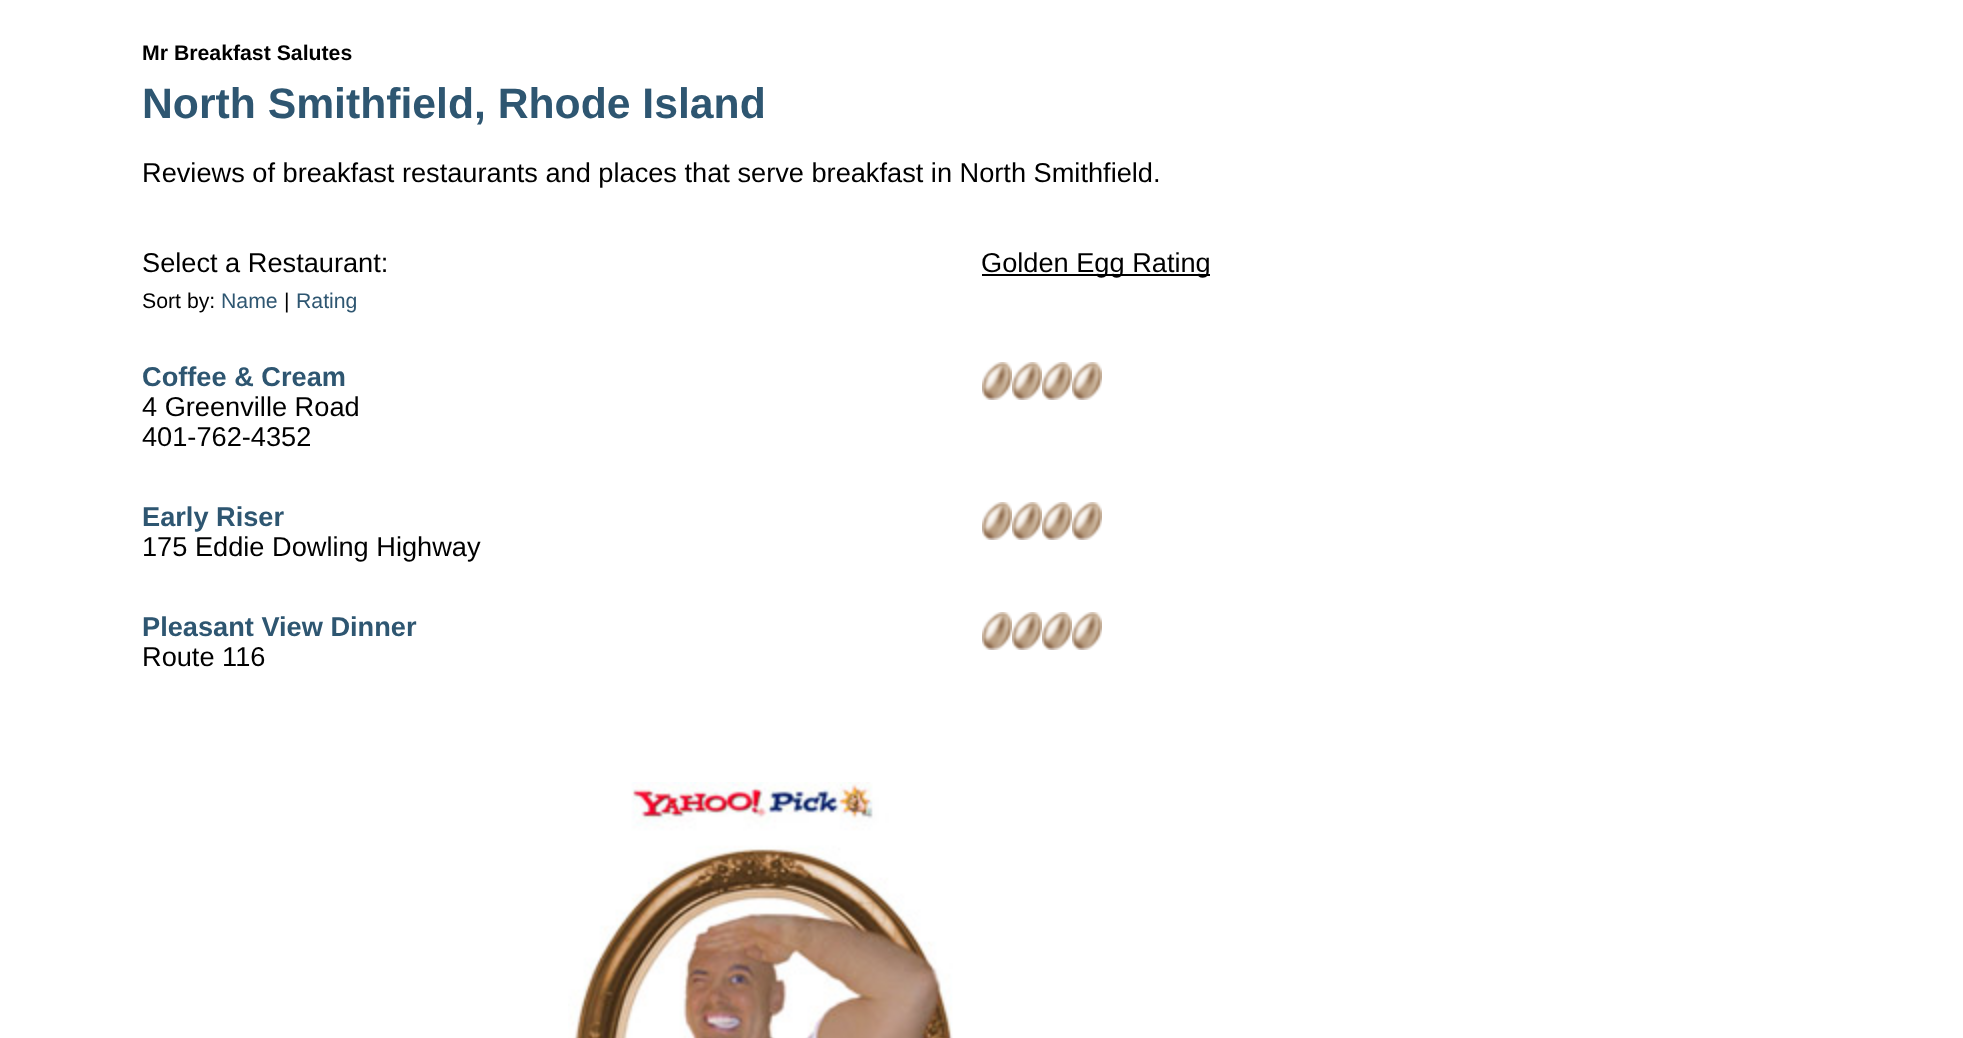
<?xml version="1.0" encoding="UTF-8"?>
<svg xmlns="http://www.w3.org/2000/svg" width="1963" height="1038">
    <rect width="100%" height="100%" fill="#FFFFFF"/>
    <text x="142" y="60" font-family="Liberation Sans" font-size="21.25" font-weight="700" fill="#000000">Mr Breakfast Salutes</text>
    <text x="142" y="118" font-family="Liberation Sans" font-size="42.7" font-weight="700" fill="#2E5671">North Smithfield, Rhode Island</text>
    <text x="142" y="182" font-family="Liberation Sans" font-size="27.2" fill="#000000">Reviews of breakfast restaurants and places that serve breakfast in North Smithfield.</text>
    <text x="142" y="272" font-family="Liberation Sans" font-size="27.2" fill="#000000">Select a Restaurant:</text>
    <text x="142" y="308" font-family="Liberation Sans" font-size="21.25" fill="#000000">Sort by:</text>
    <text x="221" y="308" font-family="Liberation Sans" font-size="21.25" fill="#2E5671">Name</text>
    <text x="284" y="308" font-family="Liberation Sans" font-size="21.25" fill="#000000">|</text>
    <text x="296" y="308" font-family="Liberation Sans" font-size="21.25" fill="#2E5671">Rating</text>
    <rect x="982" y="274" width="228" height="2" fill="#000000"/>
    <text x="981" y="272" font-family="Liberation Sans" font-size="27.2" fill="#000000">Golden Egg Rating</text>
    <text x="142" y="386" font-family="Liberation Sans" font-size="27.2" font-weight="700" fill="#2E5671">Coffee &amp; Cream</text>
    <text font-family="Liberation Sans" font-size="27.2" fill="#000000">
        <tspan x="142" y="416">4 Greenville Road</tspan>
        <tspan x="142" y="446">401-762-4352</tspan>
    </text>
    <image x="982" y="362" width="30" height="38" href="img_01.png"/>
    <image x="1012" y="362" width="30" height="38" href="img_01.png"/>
    <image x="1042" y="362" width="30" height="38" href="img_01.png"/>
    <image x="1072" y="362" width="30" height="38" href="img_01.png"/>
    <text x="142" y="526" font-family="Liberation Sans" font-size="27.2" font-weight="700" fill="#2E5671">Early Riser</text>
    <text x="142" y="556" font-family="Liberation Sans" font-size="27.2" fill="#000000">175 Eddie Dowling Highway</text>
    <image x="982" y="502" width="30" height="38" href="img_01.png"/>
    <image x="1012" y="502" width="30" height="38" href="img_01.png"/>
    <image x="1042" y="502" width="30" height="38" href="img_01.png"/>
    <image x="1072" y="502" width="30" height="38" href="img_01.png"/>
    <text x="142" y="636" font-family="Liberation Sans" font-size="27.2" font-weight="700" fill="#2E5671">Pleasant View Dinner</text>
    <text x="142" y="666" font-family="Liberation Sans" font-size="27.2" fill="#000000">Route 116</text>
    <image x="982" y="612" width="30" height="38" href="img_01.png"/>
    <image x="1012" y="612" width="30" height="38" href="img_01.png"/>
    <image x="1042" y="612" width="30" height="38" href="img_01.png"/>
    <image x="1072" y="612" width="30" height="38" href="img_01.png"/>
    <image x="568" y="782" width="385" height="256" href="img_02.png"/>
</svg>
